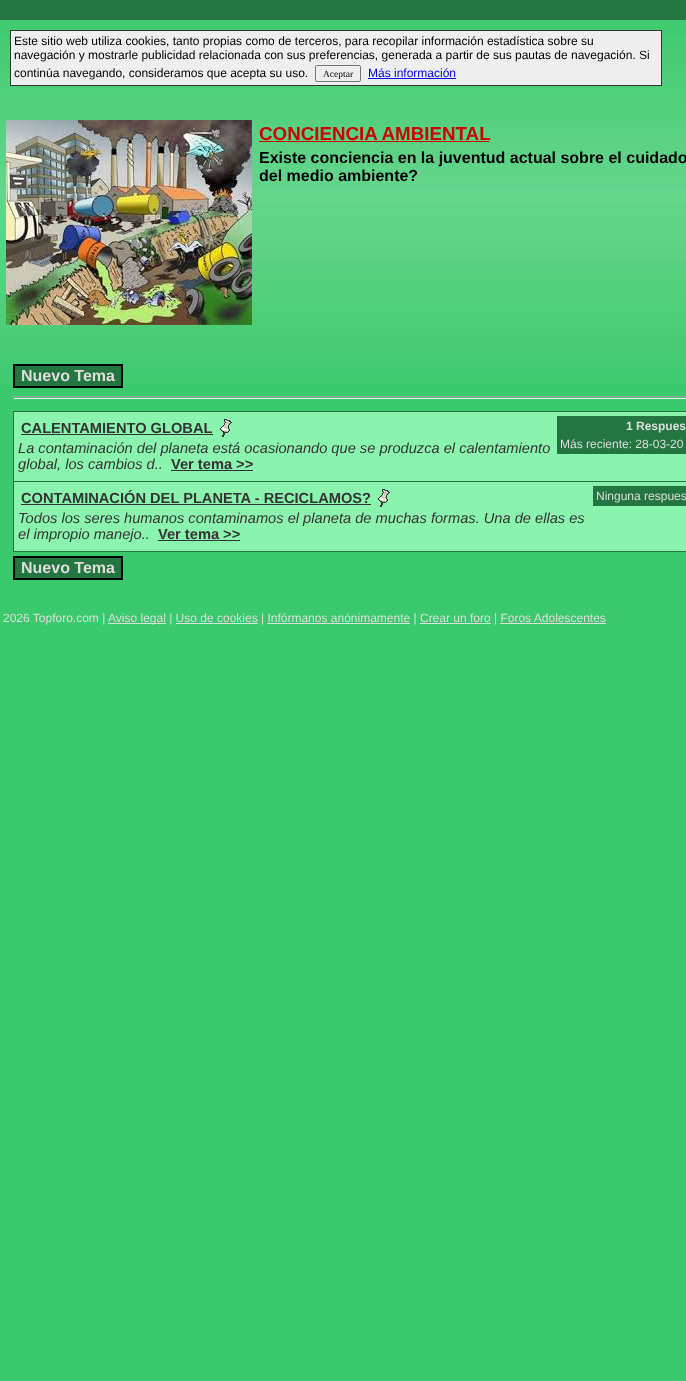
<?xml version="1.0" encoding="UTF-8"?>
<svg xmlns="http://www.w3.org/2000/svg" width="686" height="1381">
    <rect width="100%" height="100%" fill="#3AC96C"/>
    <image x="0" y="20" width="686" height="364" href="img_01.png"/>
    <rect x="0" y="0" width="686" height="20" fill="#237640"/>
    <rect x="10.5" y="30.5" width="651" height="55" fill="#EEEEEE" stroke="#333333"/>
    <text font-family="Liberation Sans" font-size="12" fill="#000000">
        <tspan x="14" y="45">Este sitio web utiliza cookies, tanto propias como de terceros, para recopilar información estadística sobre su</tspan>
        <tspan x="14" y="59">navegación y mostrarle publicidad relacionada con sus preferencias, generada a partir de sus pautas de navegación. Si</tspan>
        <tspan x="14" y="77">continúa navegando, consideramos que acepta su uso.</tspan>
    </text>
    <rect x="315.5" y="65.5" width="45" height="16" rx="1.5" fill="none" stroke="#767676"/>
    <text x="323" y="77" font-family="Liberation Serif" font-size="9.5" fill="#000000">Aceptar</text>
    <text x="368" y="77" font-family="Liberation Sans" font-size="12" fill="#0000EE">Más información</text>
    <rect x="368" y="78" width="88" height="1" fill="#0000EE"/>
    <image x="6" y="120" width="246" height="205" href="img_02.png"/>
    <text x="259" y="140" font-family="Liberation Sans" font-size="18.75" font-weight="700" fill="#CC0000">CONCIENCIA AMBIENTAL</text>
    <rect x="259" y="141" width="230" height="1" fill="#CC0000"/>
    <text font-family="Liberation Sans" font-size="16" font-weight="700" fill="#000000">
        <tspan x="259" y="163">Existe conciencia en la juventud actual sobre el cuidado</tspan>
        <tspan x="259" y="181">del medio ambiente?</tspan>
    </text>
    <rect x="14" y="365" width="108" height="22" fill="#237640" stroke="#000000" stroke-width="2"/>
    <text x="21" y="381" font-family="Liberation Sans" font-size="16" font-weight="700" fill="#DDDDDD">Nuevo Tema</text>
    <rect x="13" y="396" width="673" height="1" fill="#9F9F9F"/>
    <rect x="13" y="398" width="673" height="1" fill="#EEEEEE"/>
    <rect x="13" y="396" width="1" height="3" fill="#9F9F9F"/>
    <rect x="13" y="411" width="673" height="141" fill="#237640"/>
    <rect x="14" y="412" width="672" height="69" fill="#8AF4AF"/>
    <text x="21" y="433" font-family="Liberation Sans" font-size="14.65" font-weight="700" fill="#333333">CALENTAMIENTO GLOBAL</text>
    <rect x="21" y="434" width="192" height="1" fill="#333333"/>
    <image x="220" y="419" width="12" height="18" href="img_03.png"/>
    <text font-family="Liberation Sans" font-size="14.65" font-style="italic" fill="#333333">
        <tspan x="18" y="453">La contaminación del planeta está ocasionando que se produzca el calentamiento</tspan>
        <tspan x="18" y="469">global, los cambios d..</tspan>
    </text>
    <text x="171" y="469" font-family="Liberation Sans" font-size="14.65" font-weight="700" fill="#333333">Ver tema &gt;&gt;</text>
    <rect x="171" y="470" width="82" height="1" fill="#333333"/>
    <rect x="557" y="416" width="129" height="38" fill="#237640"/>
    <text x="626" y="430" font-family="Liberation Sans" font-size="12" font-weight="700" fill="#DDDDDD">1 Respues</text>
    <text x="560" y="448" font-family="Liberation Sans" font-size="12" fill="#DDDDDD">Más reciente: 28-03-20</text>
    <rect x="14" y="482" width="672" height="69" fill="#8AF4AF"/>
    <text x="21" y="503" font-family="Liberation Sans" font-size="14.65" font-weight="700" fill="#333333">CONTAMINACIÓN DEL PLANETA - RECICLAMOS?</text>
    <rect x="21" y="504" width="350" height="1" fill="#333333"/>
    <image x="378" y="489" width="12" height="18" href="img_03.png"/>
    <text font-family="Liberation Sans" font-size="14.65" font-style="italic" fill="#333333">
        <tspan x="18" y="523">Todos los seres humanos contaminamos el planeta de muchas formas. Una de ellas es</tspan>
        <tspan x="18" y="539">el impropio manejo..</tspan>
    </text>
    <text x="158" y="539" font-family="Liberation Sans" font-size="14.65" font-weight="700" fill="#333333">Ver tema &gt;&gt;</text>
    <rect x="158" y="540" width="82" height="1" fill="#333333"/>
    <rect x="593" y="486" width="93" height="20" fill="#237640"/>
    <text x="596" y="500" font-family="Liberation Sans" font-size="12" fill="#DDDDDD">Ninguna respues</text>
    <rect x="14" y="557" width="108" height="22" fill="#237640" stroke="#000000" stroke-width="2"/>
    <text x="21" y="573" font-family="Liberation Sans" font-size="16" font-weight="700" fill="#DDDDDD">Nuevo Tema</text>
    <text x="3" y="622" font-family="Liberation Sans" font-size="12" fill="#DDDDDD">2026 Topforo.com |</text>
    <rect x="108" y="623" width="58" height="1" fill="#DDDDDD"/>
    <text x="108" y="622" font-family="Liberation Sans" font-size="12" fill="#DDDDDD">Aviso legal | Uso de cookies | Infórmanos anónimamente | Crear un foro | Foros Adolescentes</text>
    <rect x="176" y="623" width="82" height="1" fill="#DDDDDD"/>
    <rect x="267" y="623" width="143" height="1" fill="#DDDDDD"/>
    <rect x="420" y="623" width="71" height="1" fill="#DDDDDD"/>
    <rect x="500" y="623" width="106" height="1" fill="#DDDDDD"/>
</svg>
